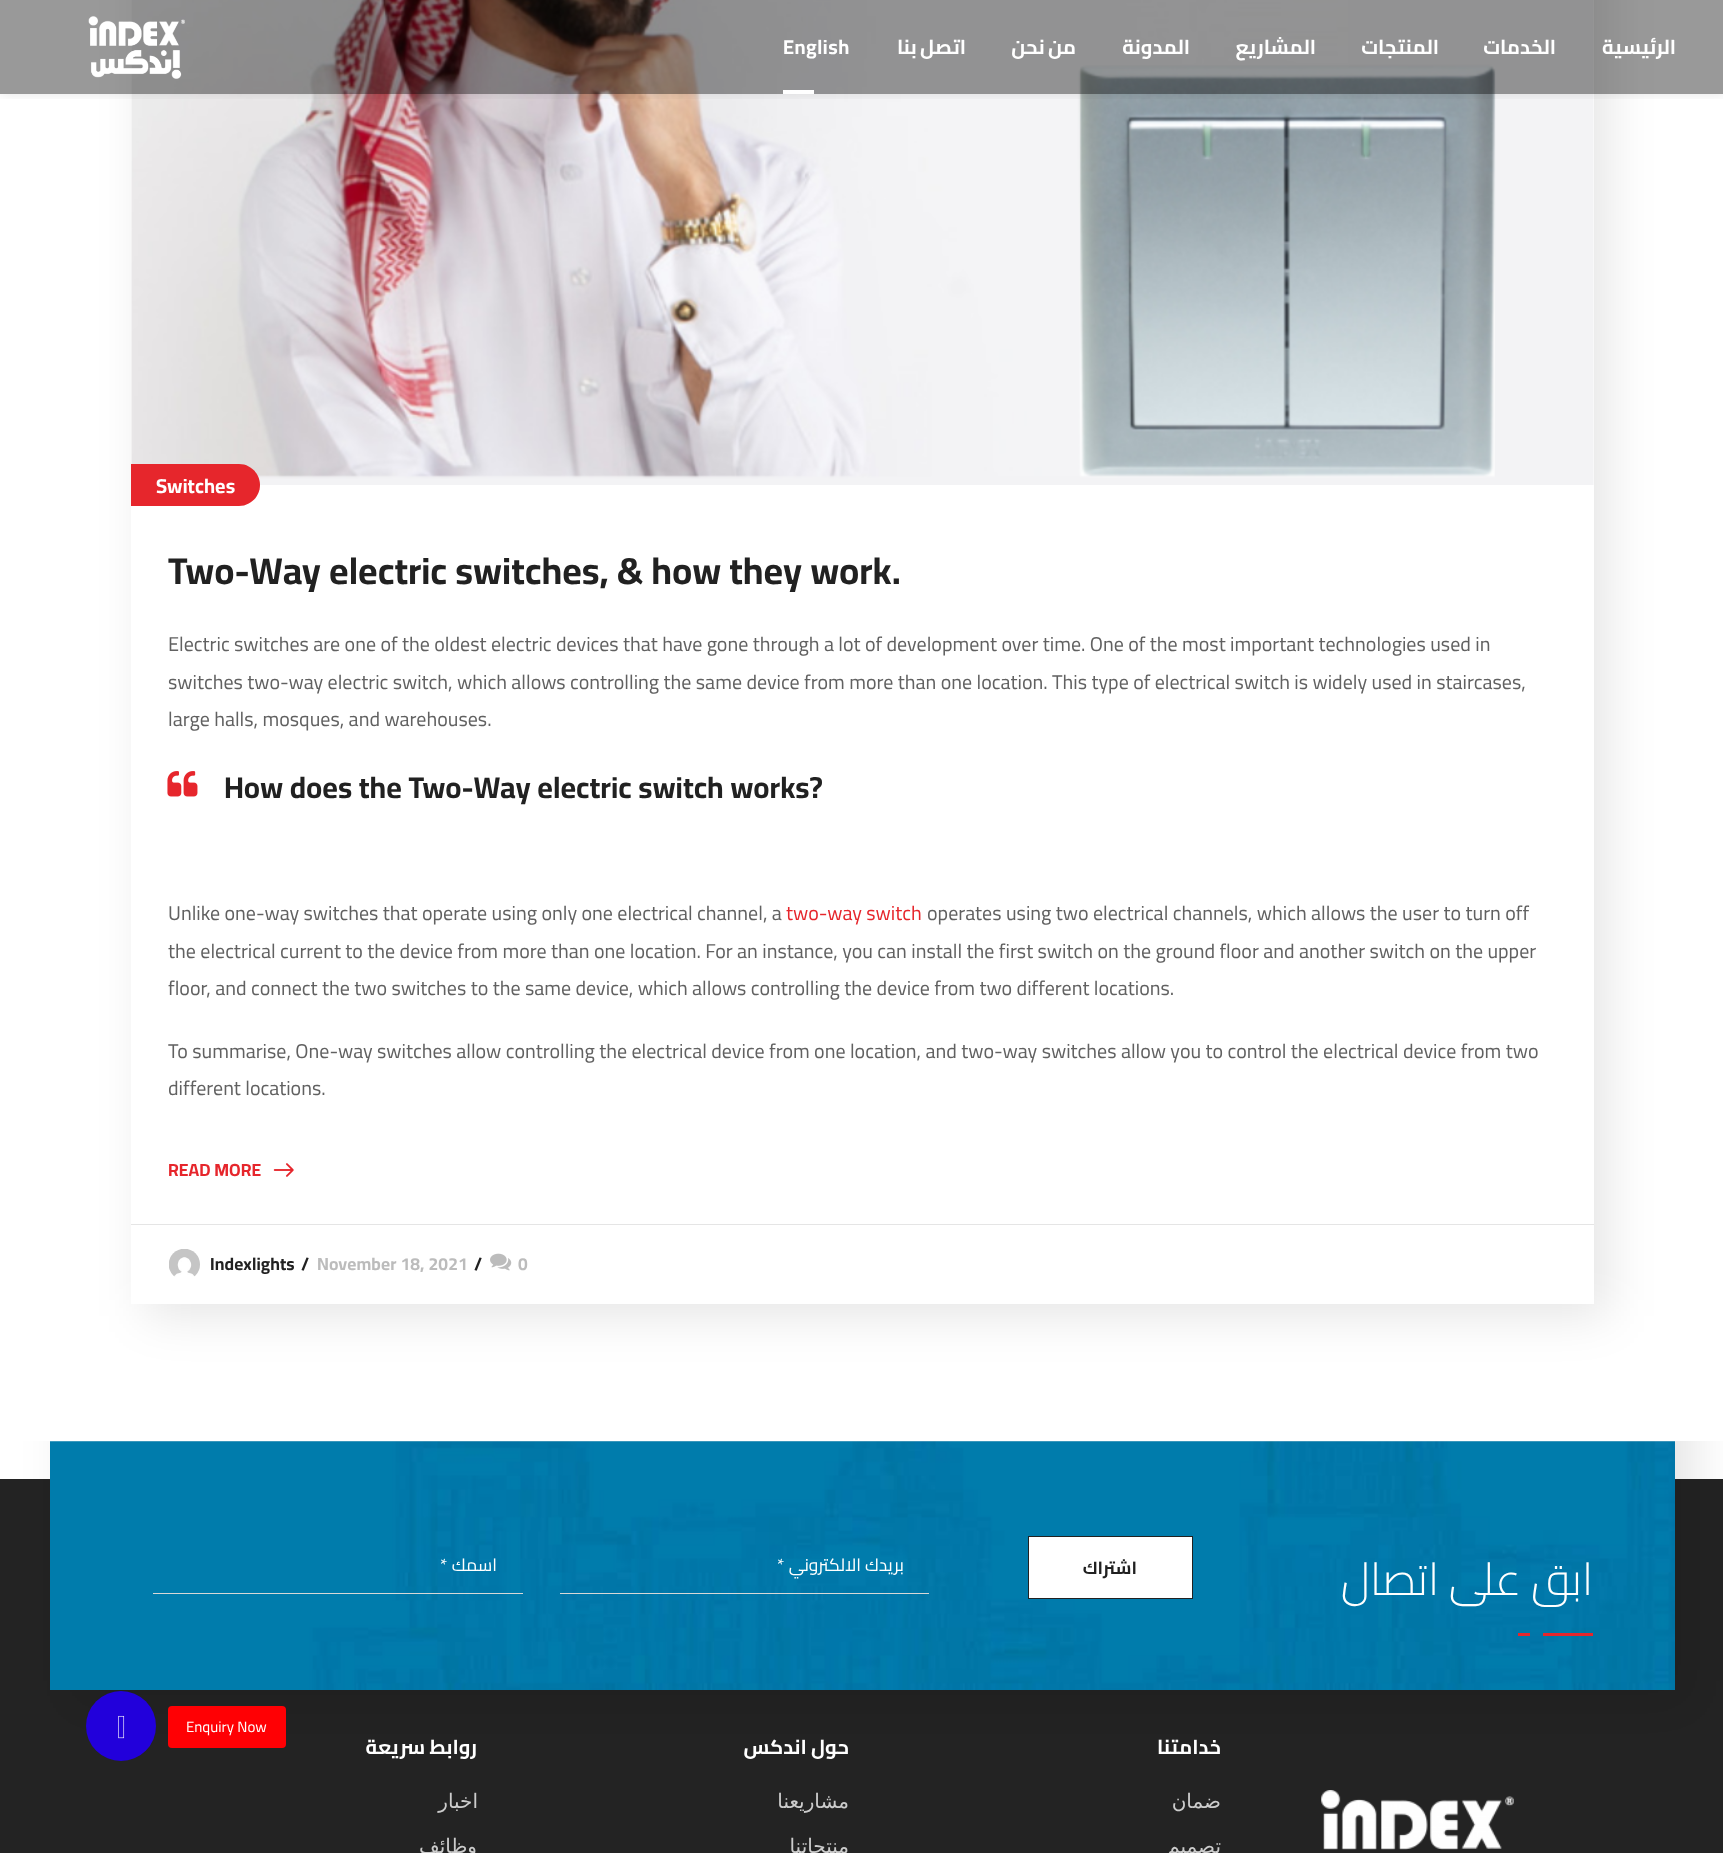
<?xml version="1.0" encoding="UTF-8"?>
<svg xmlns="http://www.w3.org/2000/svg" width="1723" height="1853">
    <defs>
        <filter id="blur1" x="-50%" y="-200%" width="200%" height="500%"><feGaussianBlur stdDeviation="24"/></filter>
        <clipPath id="clip1"><rect x="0" y="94" width="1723" height="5"/></clipPath>
        <filter id="blur2" x="-50%" y="-200%" width="200%" height="500%"><feGaussianBlur stdDeviation="6"/></filter>
        <clipPath id="clip2"><rect x="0" y="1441" width="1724" height="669"/></clipPath>
    </defs>
    <rect width="100%" height="100%" fill="#FFFFFF"/>
    <rect x="145" y="-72" width="1463" height="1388" fill="#000000" fill-opacity="0.1" filter="url(#blur1)"/>
    <rect x="131" y="0" width="1463" height="1304" fill="#FFFFFF"/>
    <image x="131" y="0" width="1463" height="485" href="img_02.png"/>
    <g clip-path="url(#clip1)">
        <rect x="1" y="0" width="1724" height="94" fill="#000000" fill-opacity="0.1" filter="url(#blur2)"/>
    </g>
    <rect x="0" y="0" width="1723" height="94" fill="#000000" fill-opacity="0.4"/>
    <image x="88" y="16" width="97" height="63" href="img_01.png"/>
    <text x="783" y="54" font-family="Cairo" font-size="20" font-weight="700" letter-spacing="0.5" fill="#FFFFFF">English</text>
    <text x="966" y="54" word-spacing="-1" font-family="Cairo" font-size="20" font-weight="700" letter-spacing="0.5" direction="rtl" fill="#FFFFFF">اتصل بنا</text>
    <text x="1076" y="54" word-spacing="-1" font-family="Cairo" font-size="20" font-weight="700" letter-spacing="0.5" direction="rtl" fill="#FFFFFF">من نحن</text>
    <text x="1190" y="54" font-family="Cairo" font-size="20" font-weight="700" letter-spacing="0.5" direction="rtl" fill="#FFFFFF">المدونة</text>
    <text x="1316" y="54" font-family="Cairo" font-size="20" font-weight="700" letter-spacing="0.5" direction="rtl" fill="#FFFFFF">المشاريع</text>
    <text x="1439" y="54" font-family="Cairo" font-size="20" font-weight="700" letter-spacing="0.5" direction="rtl" fill="#FFFFFF">المنتجات</text>
    <text x="1556" y="54" font-family="Cairo" font-size="20" font-weight="700" letter-spacing="0.5" direction="rtl" fill="#FFFFFF">الخدمات</text>
    <text x="1676" y="54" font-family="Cairo" font-size="20" font-weight="700" letter-spacing="0.5" direction="rtl" fill="#FFFFFF">الرئيسية</text>
    <rect x="783" y="90" width="31" height="4" fill="#FFFFFF"/>
    <path d="M 131 464 H 239 C 250.5 464 260 473.5 260 485 C 260 496.5 250.5 506 239 506 H 131 Z" fill="#E6262C"/>
    <text x="156" y="493" font-family="Cairo" font-size="20" font-weight="700" letter-spacing="0.1" fill="#FFFFFF">Switches</text>
    <text x="168" y="584" font-family="Cairo" font-size="37.5" font-weight="700" fill="#212121">Two-Way electric switches, &amp; how they work.</text>
    <text font-family="Cairo" font-size="20" fill="#616161">
        <tspan x="168" y="651">Electric switches are one of the oldest electric devices that have gone through a lot of development over time. One of the most important technologies used in</tspan>
        <tspan x="168" y="689">switches two-way electric switch, which allows controlling the same device from more than one location. This type of electrical switch is widely used in staircases,</tspan>
        <tspan x="168" y="726">large halls, mosques, and warehouses.</tspan>
    </text>
    <image x="167" y="771" width="31" height="26" href="img_03.png"/>
    <text x="224" y="798" font-family="Cairo" font-size="30" font-weight="700" fill="#212121">How does the Two-Way electric switch works?</text>
    <text x="168" y="920" font-family="Cairo" font-size="20" fill="#616161">Unlike one-way switches that operate using only one electrical channel, a</text>
    <text x="786" y="920" font-family="Cairo" font-size="20" fill="#E6262C">two-way switch</text>
    <text x="927" y="920" font-family="Cairo" font-size="20" fill="#616161">operates using two electrical channels, which allows the user to turn off</text>
    <text font-family="Cairo" font-size="20" fill="#616161">
        <tspan x="168" y="958">the electrical current to the device from more than one location. For an instance, you can install the first switch on the ground floor and another switch on the upper</tspan>
        <tspan x="168" y="995">floor, and connect the two switches to the same device, which allows controlling the device from two different locations.</tspan>
    </text>
    <text font-family="Cairo" font-size="20" fill="#616161">
        <tspan x="168" y="1058">To summarise, One-way switches allow controlling the electrical device from one location, and two-way switches allow you to control the electrical device from two</tspan>
        <tspan x="168" y="1095">different locations.</tspan>
    </text>
    <text x="168" y="1176" font-family="Cairo" font-size="17.5" font-weight="700" fill="#E6262C">READ MORE</text>
    <image x="273" y="1163" width="21" height="14" href="img_04.png"/>
    <rect x="131" y="1224" width="1463" height="1" fill="#E5E5E5"/>
    <image x="169" y="1249" width="31" height="28" href="img_05.png"/>
    <text x="210" y="1270" font-family="Cairo" font-size="17.5" font-weight="700" letter-spacing="0.1" fill="#212121">Indexlights</text>
    <text x="301" y="1270" font-family="Cairo" font-size="17.5" font-weight="700" letter-spacing="0.1" fill="#212121">/</text>
    <text x="317" y="1270" font-family="Cairo" font-size="17.5" font-weight="700" letter-spacing="0.1" fill="#BCBCBC">November 18, 2021</text>
    <text x="474" y="1270" font-family="Cairo" font-size="17.5" font-weight="700" letter-spacing="0.1" fill="#212121">/</text>
    <image x="490" y="1253" width="22" height="18" href="img_06.png"/>
    <text x="518" y="1270" font-family="Cairo" font-size="17.5" font-weight="700" letter-spacing="0.1" fill="#BCBCBC">0</text>
    <rect x="0" y="1479" width="1723" height="374" fill="#232323"/>
    <g clip-path="url(#clip2)">
        <rect x="69" y="1396" width="1625" height="312" fill="#000000" fill-opacity="0.1" filter="url(#blur1)"/>
    </g>
    <circle cx="121" cy="1726" r="35" fill="#2200DB"/>
    <image x="118" y="1715" width="7" height="24" href="img_07.png"/>
    <rect x="168" y="1706" width="118" height="42" rx="4" fill="#FF0004"/>
    <text x="186" y="1732" font-family="Cairo" font-size="15" fill="#FFFFFF">Enquiry Now</text>
    <image x="50" y="1441" width="1625" height="249" href="img_08.png"/>
    <rect x="153" y="1593" width="370" height="1" fill="#D9D8D7"/>
    <text x="440" y="1571" font-family="Cairo" font-size="17.5" fill="#FFFFFF">*</text>
    <text x="497" y="1571" font-family="'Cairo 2'" font-size="17.5" direction="rtl" fill="#FFFFFF">اسمك</text>
    <rect x="560" y="1593" width="369" height="1" fill="#D9D8D7"/>
    <text x="777" y="1571" font-family="Cairo" font-size="17.5" fill="#FFFFFF">*</text>
    <text x="904" y="1571" font-family="'Cairo 2'" font-size="17.5" direction="rtl" fill="#FFFFFF">بريدك الالكتروني</text>
    <rect x="1028.5" y="1536.5" width="164" height="62" fill="#FFFFFF" stroke="#212121"/>
    <text x="1137" y="1574" font-family="Cairo" font-size="17.5" font-weight="700" direction="rtl" fill="#212121">اشتراك</text>
    <text x="1593" y="1595" font-family="Cairo" font-size="45" font-weight="300" direction="rtl" fill="#FFFFFF">ابق على اتصال</text>
    <rect x="1518" y="1633" width="12" height="3" fill="#E6262C"/>
    <rect x="1543" y="1633" width="50" height="3" fill="#E6262C"/>
    <text x="477" y="1754" font-family="Cairo" font-size="20" font-weight="700" direction="rtl" fill="#FFFFFF">روابط سريعة</text>
    <text x="478" y="1808" font-family="DejaVu Sans" font-size="20" direction="rtl" fill="#CCCCCC">اخبار</text>
    <text x="477" y="1853" font-family="DejaVu Sans" font-size="20" direction="rtl" fill="#CCCCCC">وظائف</text>
    <text x="849" y="1754" font-family="Cairo" font-size="20" font-weight="700" direction="rtl" fill="#FFFFFF">حول اندكس</text>
    <text x="849" y="1808" font-family="DejaVu Sans" font-size="20" direction="rtl" fill="#CCCCCC">مشاريعنا</text>
    <text x="849" y="1853" font-family="DejaVu Sans" font-size="20" direction="rtl" fill="#CCCCCC">منتجاتنا</text>
    <text x="1221" y="1754" font-family="Cairo" font-size="20" font-weight="700" direction="rtl" fill="#FFFFFF">خدامتنا</text>
    <text x="1221" y="1808" font-family="DejaVu Sans" font-size="20" direction="rtl" fill="#CCCCCC">ضمان</text>
    <text x="1221" y="1853" font-family="DejaVu Sans" font-size="20" direction="rtl" fill="#CCCCCC">تصميم</text>
    <image x="1321" y="1790" width="193" height="60" href="img_09.png"/>
</svg>
